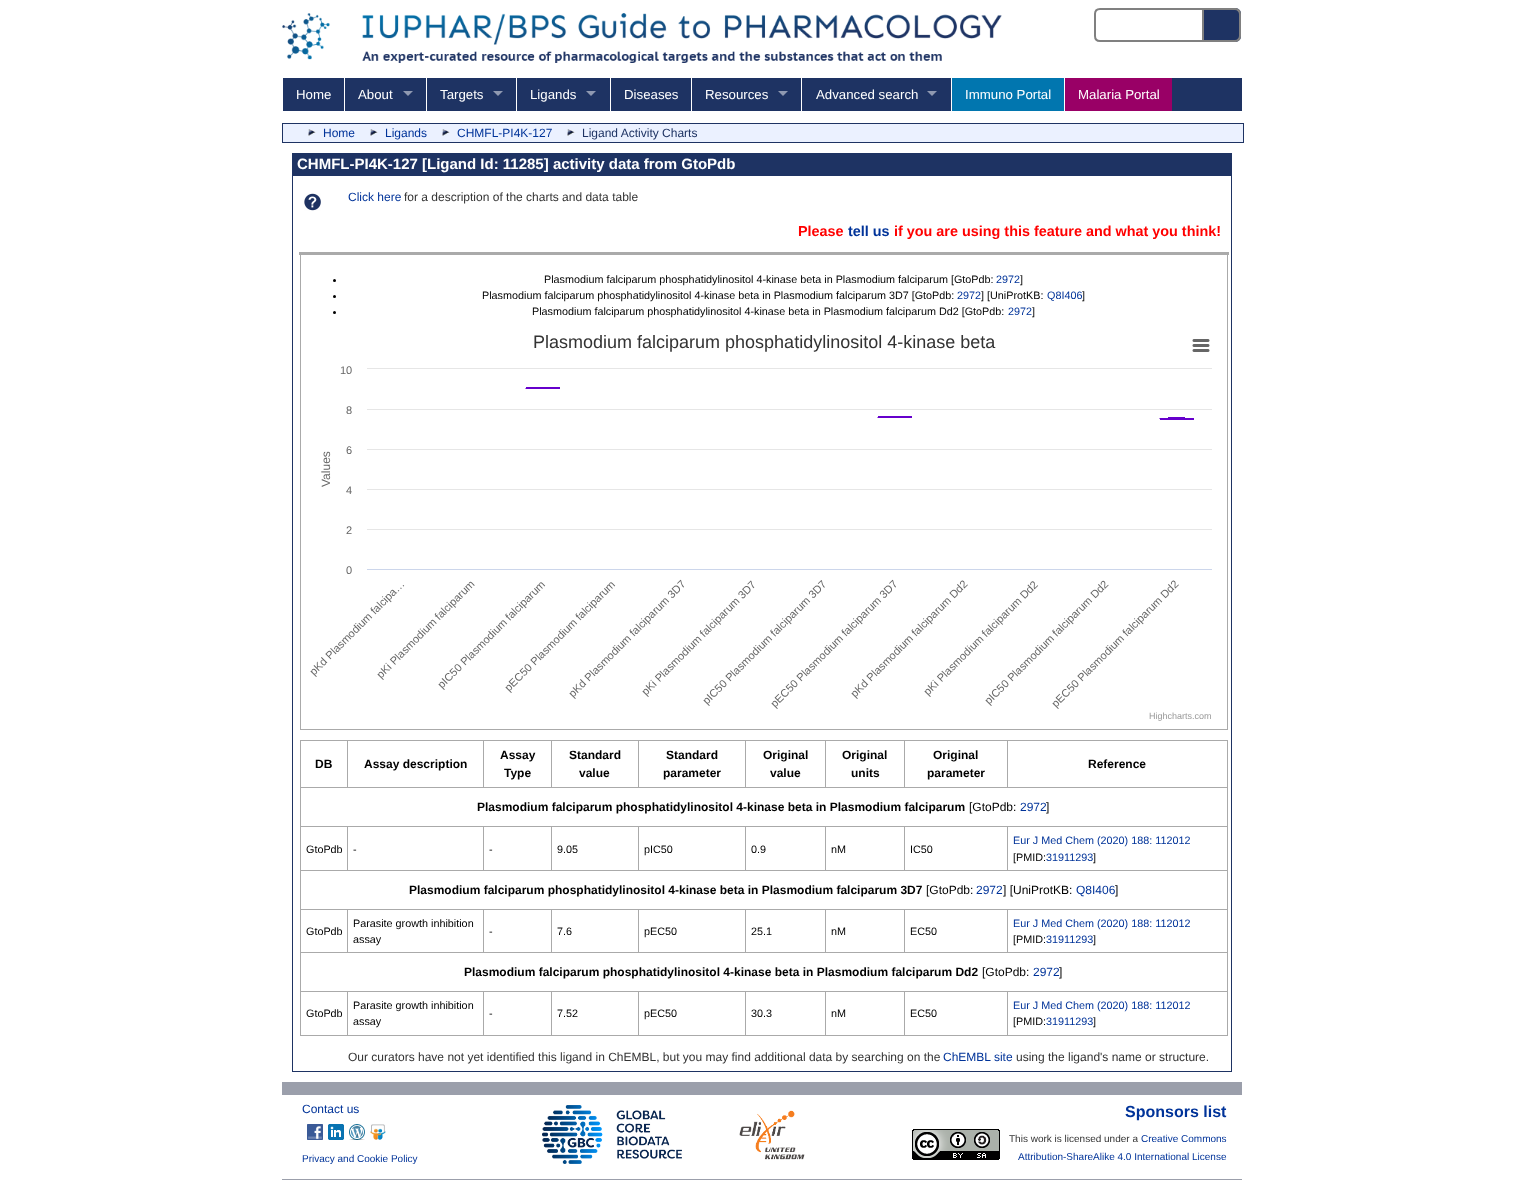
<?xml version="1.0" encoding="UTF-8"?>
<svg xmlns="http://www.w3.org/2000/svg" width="1523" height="1197">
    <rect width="100%" height="100%" fill="#FFFFFF"/>
    <image x="282" y="13" width="720" height="50" href="img_01.png"/>
    <path d="M 1100 9 H 1203 V 41 H 1100 C 1097 41 1095 39 1095 36 V 14 C 1095 11 1097 9 1100 9 Z" fill="none" stroke="#808080" stroke-width="2"/>
    <path d="M 1204 8 H 1235 C 1238.5 8 1241 10.5 1241 14 V 36 C 1241 39.5 1238.5 42 1235 42 H 1204 Z" fill="#1E3363"/>
    <path d="M 1204 8 H 1235 C 1238.5 8 1241 10.5 1241 14 V 36 C 1241 39.5 1238.5 42 1235 42 H 1204 Z M 1204 10 H 1235 C 1237 10 1239 12 1239 14 V 36 C 1239 38 1237 40 1235 40 H 1204 Z" fill="#808080" fill-rule="evenodd"/>
    <rect x="283" y="78" width="959" height="33" fill="#1E3363"/>
    <text x="296" y="99" font-family="Liberation Sans" font-size="13.25" fill="#FFFFFF">Home</text>
    <rect x="344" y="78" width="1" height="33" fill="#FFFFFF"/>
    <text x="358" y="99" font-family="Liberation Sans" font-size="13.25" fill="#FFFFFF">About</text>
    <path d="M 403 91 H 413 L 408 96 Z" fill="#8F99B1"/>
    <rect x="426" y="78" width="1" height="33" fill="#FFFFFF"/>
    <text x="440" y="99" font-family="Liberation Sans" font-size="13.25" fill="#FFFFFF">Targets</text>
    <path d="M 493 91 H 503 L 498 96 Z" fill="#8F99B1"/>
    <rect x="516" y="78" width="1" height="33" fill="#FFFFFF"/>
    <text x="530" y="99" font-family="Liberation Sans" font-size="13.25" fill="#FFFFFF">Ligands</text>
    <path d="M 586 91 H 596 L 591 96 Z" fill="#8F99B1"/>
    <rect x="610" y="78" width="1" height="33" fill="#FFFFFF"/>
    <text x="624" y="99" font-family="Liberation Sans" font-size="13.25" fill="#FFFFFF">Diseases</text>
    <rect x="691" y="78" width="1" height="33" fill="#FFFFFF"/>
    <text x="705" y="99" font-family="Liberation Sans" font-size="13.25" fill="#FFFFFF">Resources</text>
    <path d="M 778 91 H 788 L 783 96 Z" fill="#8F99B1"/>
    <rect x="801" y="78" width="1" height="33" fill="#FFFFFF"/>
    <text x="816" y="99" font-family="Liberation Sans" font-size="13.25" fill="#FFFFFF">Advanced search</text>
    <path d="M 927 91 H 937 L 932 96 Z" fill="#8F99B1"/>
    <rect x="952" y="78" width="112" height="33" fill="#0176AF"/>
    <rect x="951" y="78" width="1" height="33" fill="#FFFFFF"/>
    <text x="965" y="99" font-family="Liberation Sans" font-size="13.25" fill="#FFFFFF">Immuno Portal</text>
    <rect x="1065" y="78" width="107" height="33" fill="#990066"/>
    <rect x="1064" y="78" width="1" height="33" fill="#FFFFFF"/>
    <text x="1078" y="99" font-family="Liberation Sans" font-size="13.25" fill="#FFFFFF">Malaria Portal</text>
    <rect x="282.5" y="123.5" width="961" height="19" fill="#EBF1FF" stroke="#1E3363"/>
    <image x="308" y="129" width="8" height="7" href="img_02.png"/>
    <text x="323" y="137" font-family="Liberation Sans" font-size="12" fill="#003399">Home</text>
    <image x="370" y="129" width="8" height="7" href="img_02.png"/>
    <text x="385" y="137" font-family="Liberation Sans" font-size="12" fill="#003399">Ligands</text>
    <image x="442" y="129" width="8" height="7" href="img_02.png"/>
    <text x="457" y="137" font-family="Liberation Sans" font-size="12" fill="#003399">CHMFL-PI4K-127</text>
    <image x="567" y="129" width="8" height="7" href="img_02.png"/>
    <text x="582" y="137" font-family="Liberation Sans" font-size="12" fill="#1E3363">Ligand Activity Charts</text>
    <rect x="292" y="153" width="940" height="22" fill="#1E3363"/>
    <text x="297" y="169" font-family="Liberation Sans" font-size="15" font-weight="700" fill="#FFFFFF">CHMFL-PI4K-127 [Ligand Id: 11285] activity data from GtoPdb</text>
    <rect x="292.5" y="175.5" width="939" height="896" fill="none" stroke="#1E3363"/>
    <image x="304" y="193" width="17" height="18" href="img_03.png"/>
    <text x="348" y="201" font-family="Liberation Sans" font-size="12" fill="#003399">Click here</text>
    <text x="404" y="201" font-family="Liberation Sans" font-size="12" fill="#333333">for a description of the charts and data table</text>
    <text x="798" y="236" font-family="Liberation Sans" font-size="14.4" font-weight="700" fill="#FF0000">Please</text>
    <text x="848" y="236" font-family="Liberation Sans" font-size="14.4" font-weight="700" fill="#003399">tell us</text>
    <text x="894" y="236" font-family="Liberation Sans" font-size="14.4" font-weight="700" fill="#FF0000">if you are using this feature and what you think!</text>
    <rect x="1227" y="253" width="1" height="477" fill="#AAAAAA"/>
    <rect x="300" y="729" width="928" height="1" fill="#AAAAAA"/>
    <rect x="300" y="253" width="1" height="477" fill="#AAAAAA"/>
    <rect x="299" y="252" width="930" height="3" fill="#AAAAAA"/>
    <circle cx="334.5" cy="280.5" r="1.5" fill="#000000"/>
    <text x="544" y="283" font-family="Liberation Sans" font-size="10.8" fill="#000000">Plasmodium falciparum phosphatidylinositol 4-kinase beta in Plasmodium falciparum [GtoPdb:</text>
    <text x="996" y="283" font-family="Liberation Sans" font-size="10.8" fill="#003399">2972</text>
    <text x="1020" y="283" font-family="Liberation Sans" font-size="10.8" fill="#000000">]</text>
    <circle cx="334.5" cy="296.5" r="1.5" fill="#000000"/>
    <text x="482" y="299" font-family="Liberation Sans" font-size="10.8" fill="#000000">Plasmodium falciparum phosphatidylinositol 4-kinase beta in Plasmodium falciparum 3D7 [GtoPdb:</text>
    <text x="957" y="299" font-family="Liberation Sans" font-size="10.8" fill="#003399">2972</text>
    <text x="981" y="299" font-family="Liberation Sans" font-size="10.8" fill="#000000">] [UniProtKB:</text>
    <text x="1047" y="299" font-family="Liberation Sans" font-size="10.8" fill="#003399">Q8I406</text>
    <text x="1082" y="299" font-family="Liberation Sans" font-size="10.8" fill="#000000">]</text>
    <circle cx="334.5" cy="312.5" r="1.5" fill="#000000"/>
    <text x="532" y="315" font-family="Liberation Sans" font-size="10.8" fill="#000000">Plasmodium falciparum phosphatidylinositol 4-kinase beta in Plasmodium falciparum Dd2 [GtoPdb:</text>
    <text x="1008" y="315" font-family="Liberation Sans" font-size="10.8" fill="#003399">2972</text>
    <text x="1032" y="315" font-family="Liberation Sans" font-size="10.8" fill="#000000">]</text>
    <image x="367" y="339" width="845" height="231" href="img_04.png"/>
    <text x="533" y="348" font-family="Liberation Sans" font-size="18" fill="#333333">Plasmodium falciparum phosphatidylinositol 4-kinase beta</text>
    <text x="340" y="374" font-family="Liberation Sans" font-size="11" fill="#666666">10</text>
    <text x="346" y="414" font-family="Liberation Sans" font-size="11" fill="#666666">8</text>
    <text x="330" y="487" transform="rotate(-90 330 487)" font-family="Liberation Sans" font-size="12" fill="#666666">Values</text>
    <text x="346" y="454" font-family="Liberation Sans" font-size="11" fill="#666666">6</text>
    <text x="346" y="494" font-family="Liberation Sans" font-size="11" fill="#666666">4</text>
    <text x="346" y="534" font-family="Liberation Sans" font-size="11" fill="#666666">2</text>
    <text x="346" y="574" font-family="Liberation Sans" font-size="11" fill="#666666">0</text>
    <text x="314" y="676" transform="rotate(-45 314 676)" font-family="Liberation Sans" font-size="11" fill="#666666">pKd Plasmodium falcipa…</text>
    <text x="381" y="679" transform="rotate(-45 381 679)" font-family="Liberation Sans" font-size="11" fill="#666666">pKi Plasmodium falciparum</text>
    <text x="442" y="689" transform="rotate(-45 442 689)" font-family="Liberation Sans" font-size="11" fill="#666666">pIC50 Plasmodium falciparum</text>
    <text x="509" y="692" transform="rotate(-45 509 692)" font-family="Liberation Sans" font-size="11" fill="#666666">pEC50 Plasmodium falciparum</text>
    <text x="573" y="698" transform="rotate(-45 573 698)" font-family="Liberation Sans" font-size="11" fill="#666666">pKd Plasmodium falciparum 3D7</text>
    <text x="646" y="696" transform="rotate(-45 646 696)" font-family="Liberation Sans" font-size="11" fill="#666666">pKi Plasmodium falciparum 3D7</text>
    <text x="707" y="705" transform="rotate(-45 707 705)" font-family="Liberation Sans" font-size="11" fill="#666666">pIC50 Plasmodium falciparum 3D7</text>
    <text x="775" y="708" transform="rotate(-45 775 708)" font-family="Liberation Sans" font-size="11" fill="#666666">pEC50 Plasmodium falciparum 3D7</text>
    <text x="855" y="698" transform="rotate(-45 855 698)" font-family="Liberation Sans" font-size="11" fill="#666666">pKd Plasmodium falciparum Dd2</text>
    <text x="928" y="696" transform="rotate(-45 928 696)" font-family="Liberation Sans" font-size="11" fill="#666666">pKi Plasmodium falciparum Dd2</text>
    <text x="989" y="705" transform="rotate(-45 989 705)" font-family="Liberation Sans" font-size="11" fill="#666666">pIC50 Plasmodium falciparum Dd2</text>
    <text x="1056" y="708" transform="rotate(-45 1056 708)" font-family="Liberation Sans" font-size="11" fill="#666666">pEC50 Plasmodium falciparum Dd2</text>
    <text x="1149" y="719" font-family="Liberation Sans" font-size="9" fill="#999999">Highcharts.com</text>
    <rect x="1007" y="740" width="221" height="1" fill="#AAAAAA"/>
    <rect x="300" y="787" width="928" height="1" fill="#AAAAAA"/>
    <rect x="1007" y="740" width="1" height="48" fill="#AAAAAA"/>
    <rect x="904" y="740" width="104" height="1" fill="#AAAAAA"/>
    <rect x="904" y="740" width="1" height="48" fill="#AAAAAA"/>
    <rect x="825" y="740" width="80" height="1" fill="#AAAAAA"/>
    <rect x="825" y="740" width="1" height="48" fill="#AAAAAA"/>
    <rect x="745" y="740" width="81" height="1" fill="#AAAAAA"/>
    <rect x="745" y="740" width="1" height="48" fill="#AAAAAA"/>
    <rect x="638" y="740" width="108" height="1" fill="#AAAAAA"/>
    <rect x="638" y="740" width="1" height="48" fill="#AAAAAA"/>
    <rect x="551" y="740" width="88" height="1" fill="#AAAAAA"/>
    <rect x="551" y="740" width="1" height="48" fill="#AAAAAA"/>
    <rect x="483" y="740" width="69" height="1" fill="#AAAAAA"/>
    <rect x="483" y="740" width="1" height="48" fill="#AAAAAA"/>
    <rect x="347" y="740" width="137" height="1" fill="#AAAAAA"/>
    <rect x="347" y="740" width="1" height="48" fill="#AAAAAA"/>
    <rect x="300" y="740" width="48" height="1" fill="#AAAAAA"/>
    <rect x="1007" y="826" width="221" height="1" fill="#AAAAAA"/>
    <rect x="300" y="870" width="928" height="1" fill="#AAAAAA"/>
    <rect x="1007" y="826" width="1" height="45" fill="#AAAAAA"/>
    <rect x="904" y="826" width="104" height="1" fill="#AAAAAA"/>
    <rect x="904" y="826" width="1" height="45" fill="#AAAAAA"/>
    <rect x="825" y="826" width="80" height="1" fill="#AAAAAA"/>
    <rect x="825" y="826" width="1" height="45" fill="#AAAAAA"/>
    <rect x="745" y="826" width="81" height="1" fill="#AAAAAA"/>
    <rect x="745" y="826" width="1" height="45" fill="#AAAAAA"/>
    <rect x="638" y="826" width="108" height="1" fill="#AAAAAA"/>
    <rect x="638" y="826" width="1" height="45" fill="#AAAAAA"/>
    <rect x="551" y="826" width="88" height="1" fill="#AAAAAA"/>
    <rect x="551" y="826" width="1" height="45" fill="#AAAAAA"/>
    <rect x="483" y="826" width="69" height="1" fill="#AAAAAA"/>
    <rect x="483" y="826" width="1" height="45" fill="#AAAAAA"/>
    <rect x="347" y="826" width="137" height="1" fill="#AAAAAA"/>
    <rect x="347" y="826" width="1" height="45" fill="#AAAAAA"/>
    <rect x="300" y="826" width="48" height="1" fill="#AAAAAA"/>
    <rect x="1007" y="909" width="221" height="1" fill="#AAAAAA"/>
    <rect x="300" y="952" width="928" height="1" fill="#AAAAAA"/>
    <rect x="1007" y="909" width="1" height="44" fill="#AAAAAA"/>
    <rect x="904" y="909" width="104" height="1" fill="#AAAAAA"/>
    <rect x="904" y="909" width="1" height="44" fill="#AAAAAA"/>
    <rect x="825" y="909" width="80" height="1" fill="#AAAAAA"/>
    <rect x="825" y="909" width="1" height="44" fill="#AAAAAA"/>
    <rect x="745" y="909" width="81" height="1" fill="#AAAAAA"/>
    <rect x="745" y="909" width="1" height="44" fill="#AAAAAA"/>
    <rect x="638" y="909" width="108" height="1" fill="#AAAAAA"/>
    <rect x="638" y="909" width="1" height="44" fill="#AAAAAA"/>
    <rect x="551" y="909" width="88" height="1" fill="#AAAAAA"/>
    <rect x="551" y="909" width="1" height="44" fill="#AAAAAA"/>
    <rect x="483" y="909" width="69" height="1" fill="#AAAAAA"/>
    <rect x="483" y="909" width="1" height="44" fill="#AAAAAA"/>
    <rect x="347" y="909" width="137" height="1" fill="#AAAAAA"/>
    <rect x="347" y="909" width="1" height="44" fill="#AAAAAA"/>
    <rect x="300" y="909" width="48" height="1" fill="#AAAAAA"/>
    <rect x="1007" y="991" width="221" height="1" fill="#AAAAAA"/>
    <rect x="1227" y="991" width="1" height="45" fill="#AAAAAA"/>
    <rect x="1007" y="1035" width="221" height="1" fill="#AAAAAA"/>
    <rect x="1007" y="991" width="1" height="45" fill="#AAAAAA"/>
    <rect x="904" y="991" width="104" height="1" fill="#AAAAAA"/>
    <rect x="904" y="1035" width="104" height="1" fill="#AAAAAA"/>
    <rect x="904" y="991" width="1" height="45" fill="#AAAAAA"/>
    <rect x="825" y="991" width="80" height="1" fill="#AAAAAA"/>
    <rect x="825" y="1035" width="80" height="1" fill="#AAAAAA"/>
    <rect x="825" y="991" width="1" height="45" fill="#AAAAAA"/>
    <rect x="745" y="991" width="81" height="1" fill="#AAAAAA"/>
    <rect x="745" y="1035" width="81" height="1" fill="#AAAAAA"/>
    <rect x="745" y="991" width="1" height="45" fill="#AAAAAA"/>
    <rect x="638" y="991" width="108" height="1" fill="#AAAAAA"/>
    <rect x="638" y="1035" width="108" height="1" fill="#AAAAAA"/>
    <rect x="638" y="991" width="1" height="45" fill="#AAAAAA"/>
    <rect x="551" y="991" width="88" height="1" fill="#AAAAAA"/>
    <rect x="551" y="1035" width="88" height="1" fill="#AAAAAA"/>
    <rect x="551" y="991" width="1" height="45" fill="#AAAAAA"/>
    <rect x="483" y="991" width="69" height="1" fill="#AAAAAA"/>
    <rect x="483" y="1035" width="69" height="1" fill="#AAAAAA"/>
    <rect x="483" y="991" width="1" height="45" fill="#AAAAAA"/>
    <rect x="347" y="991" width="137" height="1" fill="#AAAAAA"/>
    <rect x="347" y="1035" width="137" height="1" fill="#AAAAAA"/>
    <rect x="347" y="991" width="1" height="45" fill="#AAAAAA"/>
    <rect x="300" y="991" width="48" height="1" fill="#AAAAAA"/>
    <rect x="300" y="1035" width="48" height="1" fill="#AAAAAA"/>
    <rect x="300" y="991" width="1" height="45" fill="#AAAAAA"/>
    <rect x="300" y="952" width="1" height="40" fill="#AAAAAA"/>
    <rect x="300" y="909" width="1" height="44" fill="#AAAAAA"/>
    <rect x="300" y="870" width="1" height="40" fill="#AAAAAA"/>
    <rect x="300" y="826" width="1" height="45" fill="#AAAAAA"/>
    <rect x="300" y="787" width="1" height="40" fill="#AAAAAA"/>
    <rect x="300" y="740" width="1" height="48" fill="#AAAAAA"/>
    <text x="315" y="768" font-family="Liberation Sans" font-size="12" font-weight="700" fill="#000000">DB</text>
    <text x="364" y="768" font-family="Liberation Sans" font-size="12" font-weight="700" fill="#000000">Assay description</text>
    <text x="500" y="759" font-family="Liberation Sans" font-size="12" font-weight="700" fill="#000000">Assay</text>
    <text x="504" y="777" font-family="Liberation Sans" font-size="12" font-weight="700" fill="#000000">Type</text>
    <text x="569" y="759" font-family="Liberation Sans" font-size="12" font-weight="700" fill="#000000">Standard</text>
    <text x="579" y="777" font-family="Liberation Sans" font-size="12" font-weight="700" fill="#000000">value</text>
    <text x="666" y="759" font-family="Liberation Sans" font-size="12" font-weight="700" fill="#000000">Standard</text>
    <text x="663" y="777" font-family="Liberation Sans" font-size="12" font-weight="700" fill="#000000">parameter</text>
    <text x="763" y="759" font-family="Liberation Sans" font-size="12" font-weight="700" fill="#000000">Original</text>
    <text x="770" y="777" font-family="Liberation Sans" font-size="12" font-weight="700" fill="#000000">value</text>
    <text x="842" y="759" font-family="Liberation Sans" font-size="12" font-weight="700" fill="#000000">Original</text>
    <text x="851" y="777" font-family="Liberation Sans" font-size="12" font-weight="700" fill="#000000">units</text>
    <text x="933" y="759" font-family="Liberation Sans" font-size="12" font-weight="700" fill="#000000">Original</text>
    <text x="927" y="777" font-family="Liberation Sans" font-size="12" font-weight="700" fill="#000000">parameter</text>
    <rect x="1227" y="952" width="1" height="40" fill="#AAAAAA"/>
    <rect x="1227" y="909" width="1" height="44" fill="#AAAAAA"/>
    <rect x="1227" y="870" width="1" height="40" fill="#AAAAAA"/>
    <rect x="1227" y="826" width="1" height="45" fill="#AAAAAA"/>
    <rect x="1227" y="787" width="1" height="40" fill="#AAAAAA"/>
    <rect x="1227" y="740" width="1" height="48" fill="#AAAAAA"/>
    <text x="1088" y="768" font-family="Liberation Sans" font-size="12" font-weight="700" fill="#000000">Reference</text>
    <text x="477" y="811" font-family="Liberation Sans" font-size="12" font-weight="700" fill="#000000">Plasmodium falciparum phosphatidylinositol 4-kinase beta in Plasmodium falciparum</text>
    <text x="969" y="811" font-family="Liberation Sans" font-size="12" fill="#000000">[GtoPdb:</text>
    <text x="1020" y="811" font-family="Liberation Sans" font-size="12" fill="#003399">2972</text>
    <text x="1046" y="811" font-family="Liberation Sans" font-size="12" fill="#000000">]</text>
    <text x="306" y="853" font-family="Liberation Sans" font-size="10.8" fill="#000000">GtoPdb</text>
    <text x="353" y="853" font-family="Liberation Sans" font-size="10.8" fill="#000000">-</text>
    <text x="489" y="853" font-family="Liberation Sans" font-size="10.8" fill="#000000">-</text>
    <text x="557" y="853" font-family="Liberation Sans" font-size="10.8" fill="#000000">9.05</text>
    <text x="644" y="853" font-family="Liberation Sans" font-size="10.8" fill="#000000">pIC50</text>
    <text x="751" y="853" font-family="Liberation Sans" font-size="10.8" fill="#000000">0.9</text>
    <text x="831" y="853" font-family="Liberation Sans" font-size="10.8" fill="#000000">nM</text>
    <text x="910" y="853" font-family="Liberation Sans" font-size="10.8" fill="#000000">IC50</text>
    <text x="1013" y="844" font-family="Liberation Sans" font-size="10.8" fill="#003399">Eur J Med Chem (2020) 188: 112012</text>
    <text x="1013" y="861" font-family="Liberation Sans" font-size="10.8" fill="#000000">[PMID:</text>
    <text x="1046" y="861" font-family="Liberation Sans" font-size="10.8" fill="#003399">31911293</text>
    <text x="1093" y="861" font-family="Liberation Sans" font-size="10.8" fill="#000000">]</text>
    <text x="409" y="894" font-family="Liberation Sans" font-size="12" font-weight="700" fill="#000000">Plasmodium falciparum phosphatidylinositol 4-kinase beta in Plasmodium falciparum 3D7</text>
    <text x="926" y="894" font-family="Liberation Sans" font-size="12" fill="#000000">[GtoPdb:</text>
    <text x="976" y="894" font-family="Liberation Sans" font-size="12" fill="#003399">2972</text>
    <text x="1003" y="894" font-family="Liberation Sans" font-size="12" fill="#000000">] [UniProtKB:</text>
    <text x="1076" y="894" font-family="Liberation Sans" font-size="12" fill="#003399">Q8I406</text>
    <text x="1115" y="894" font-family="Liberation Sans" font-size="12" fill="#000000">]</text>
    <text x="306" y="935" font-family="Liberation Sans" font-size="10.8" fill="#000000">GtoPdb</text>
    <text font-family="Liberation Sans" font-size="10.8" fill="#000000">
        <tspan x="353" y="927">Parasite growth inhibition</tspan>
        <tspan x="353" y="943">assay</tspan>
    </text>
    <text x="489" y="935" font-family="Liberation Sans" font-size="10.8" fill="#000000">-</text>
    <text x="557" y="935" font-family="Liberation Sans" font-size="10.8" fill="#000000">7.6</text>
    <text x="644" y="935" font-family="Liberation Sans" font-size="10.8" fill="#000000">pEC50</text>
    <text x="751" y="935" font-family="Liberation Sans" font-size="10.8" fill="#000000">25.1</text>
    <text x="831" y="935" font-family="Liberation Sans" font-size="10.8" fill="#000000">nM</text>
    <text x="910" y="935" font-family="Liberation Sans" font-size="10.8" fill="#000000">EC50</text>
    <text x="1013" y="927" font-family="Liberation Sans" font-size="10.8" fill="#003399">Eur J Med Chem (2020) 188: 112012</text>
    <text x="1013" y="943" font-family="Liberation Sans" font-size="10.8" fill="#000000">[PMID:</text>
    <text x="1046" y="943" font-family="Liberation Sans" font-size="10.8" fill="#003399">31911293</text>
    <text x="1093" y="943" font-family="Liberation Sans" font-size="10.8" fill="#000000">]</text>
    <text x="464" y="976" font-family="Liberation Sans" font-size="12" font-weight="700" fill="#000000">Plasmodium falciparum phosphatidylinositol 4-kinase beta in Plasmodium falciparum Dd2</text>
    <text x="982" y="976" font-family="Liberation Sans" font-size="12" fill="#000000">[GtoPdb:</text>
    <text x="1033" y="976" font-family="Liberation Sans" font-size="12" fill="#003399">2972</text>
    <text x="1059" y="976" font-family="Liberation Sans" font-size="12" fill="#000000">]</text>
    <text x="306" y="1017" font-family="Liberation Sans" font-size="10.8" fill="#000000">GtoPdb</text>
    <text font-family="Liberation Sans" font-size="10.8" fill="#000000">
        <tspan x="353" y="1009">Parasite growth inhibition</tspan>
        <tspan x="353" y="1025">assay</tspan>
    </text>
    <text x="489" y="1017" font-family="Liberation Sans" font-size="10.8" fill="#000000">-</text>
    <text x="557" y="1017" font-family="Liberation Sans" font-size="10.8" fill="#000000">7.52</text>
    <text x="644" y="1017" font-family="Liberation Sans" font-size="10.8" fill="#000000">pEC50</text>
    <text x="751" y="1017" font-family="Liberation Sans" font-size="10.8" fill="#000000">30.3</text>
    <text x="831" y="1017" font-family="Liberation Sans" font-size="10.8" fill="#000000">nM</text>
    <text x="910" y="1017" font-family="Liberation Sans" font-size="10.8" fill="#000000">EC50</text>
    <text x="1013" y="1009" font-family="Liberation Sans" font-size="10.8" fill="#003399">Eur J Med Chem (2020) 188: 112012</text>
    <text x="1013" y="1025" font-family="Liberation Sans" font-size="10.8" fill="#000000">[PMID:</text>
    <text x="1046" y="1025" font-family="Liberation Sans" font-size="10.8" fill="#003399">31911293</text>
    <text x="1093" y="1025" font-family="Liberation Sans" font-size="10.8" fill="#000000">]</text>
    <text x="348" y="1061" font-family="Liberation Sans" font-size="12" fill="#333333">Our curators have not yet identified this ligand in ChEMBL, but you may find additional data by searching on the</text>
    <text x="943" y="1061" font-family="Liberation Sans" font-size="12" fill="#003399">ChEMBL site</text>
    <text x="1016" y="1061" font-family="Liberation Sans" font-size="12" fill="#333333">using the ligand's name or structure.</text>
    <rect x="282" y="1082" width="960" height="13" fill="#9B9FAB"/>
    <rect x="282" y="1179" width="960" height="1" fill="#9B9FAB"/>
    <text x="302" y="1113" font-family="Liberation Sans" font-size="12" fill="#003399">Contact us</text>
    <image x="307" y="1124" width="16" height="16" href="img_05.png"/>
    <image x="328" y="1124" width="16" height="16" href="img_06.png"/>
    <image x="349" y="1124" width="16" height="16" href="img_07.png"/>
    <image x="370" y="1124" width="16" height="16" href="img_08.png"/>
    <text x="302" y="1162" font-family="Liberation Sans" font-size="10" fill="#003399">Privacy and Cookie Policy</text>
    <image x="542" y="1105" width="140" height="59" href="img_09.png"/>
    <image x="739" y="1110" width="66" height="50" href="img_10.png"/>
    <text x="1125" y="1117" font-family="Liberation Sans" font-size="16" font-weight="700" fill="#003399">Sponsors list</text>
    <image x="912" y="1129" width="88" height="31" href="img_11.png"/>
    <text x="1009" y="1142" font-family="Liberation Sans" font-size="10" fill="#333333">This work is licensed under a</text>
    <text x="1141" y="1142" font-family="Liberation Sans" font-size="10" fill="#003399">Creative Commons</text>
    <text x="1018" y="1160" font-family="Liberation Sans" font-size="10" fill="#003399">Attribution-ShareAlike 4.0 International License</text>
</svg>
